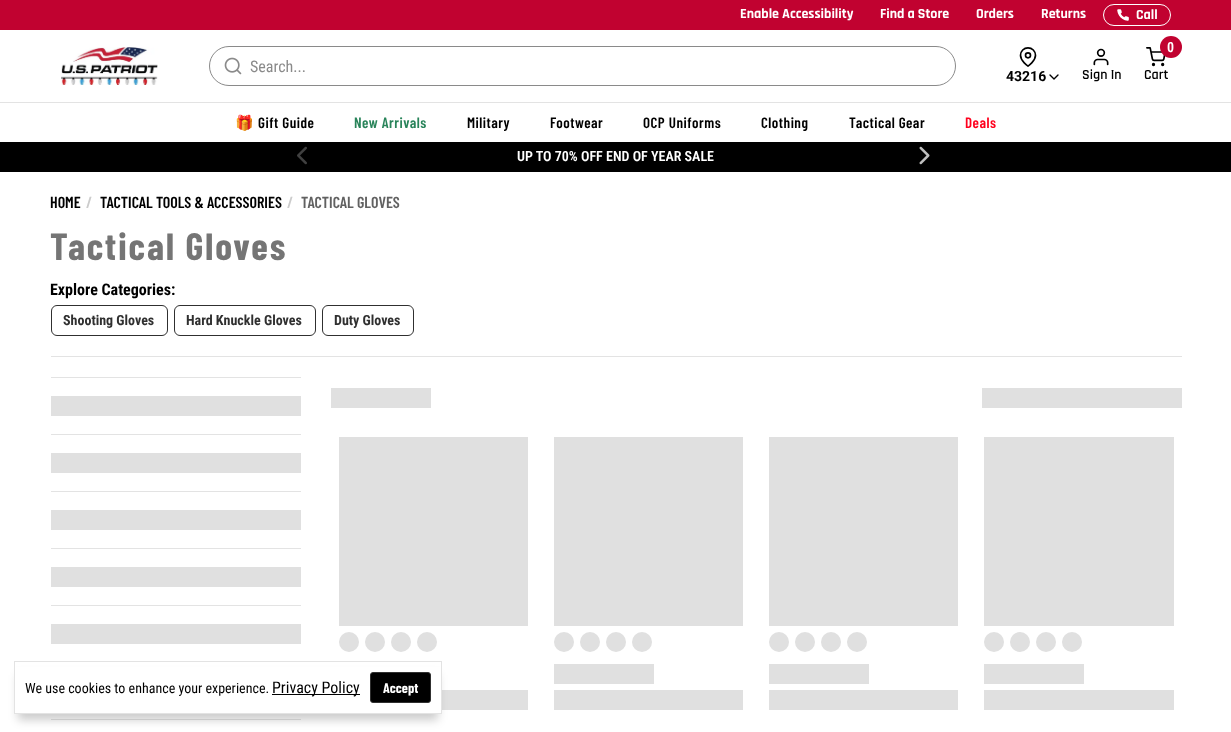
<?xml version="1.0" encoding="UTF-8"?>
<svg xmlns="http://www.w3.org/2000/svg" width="1231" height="732">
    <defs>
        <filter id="blur1" x="-50%" y="-200%" width="200%" height="500%"><feGaussianBlur stdDeviation="5"/></filter>
    </defs>
    <rect width="100%" height="100%" fill="#FFFFFF"/>
    <rect x="0" y="0" width="1231" height="30" fill="#C10230"/>
    <text x="740" y="18" font-family="Rajdhani" font-size="14" font-weight="700" fill="#FFFFFF">Enable Accessibility</text>
    <text x="880" y="18" font-family="Rajdhani" font-size="14" font-weight="700" fill="#FFFFFF">Find a Store</text>
    <text x="976" y="18" font-family="Rajdhani" font-size="14" font-weight="700" fill="#FFFFFF">Orders</text>
    <text x="1041" y="18" font-family="Rajdhani" font-size="14" font-weight="700" fill="#FFFFFF">Returns</text>
    <rect x="1103.5" y="4.5" width="67" height="21" rx="10.5" fill="none" stroke="#FFFFFF"/>
    <image x="1117" y="9" width="12" height="12" href="img_01.png"/>
    <text x="1136" y="19" font-family="Rajdhani" font-size="14" font-weight="700" fill="#FFFFFF">Call</text>
    <rect x="0" y="102" width="1231" height="1" fill="#E3E3E3"/>
    <image x="61" y="47" width="97" height="38" href="img_02.png"/>
    <rect x="209.5" y="46.5" width="746" height="39" rx="19.5" fill="none" stroke="#8A8A8A"/>
    <image x="224" y="57" width="18" height="18" href="img_03.png"/>
    <text x="250" y="72" font-family="Roboto Condensed" font-size="16" fill="#8A8A8A">Search...</text>
    <image x="1146" y="47" width="20" height="20" href="img_04.png"/>
    <circle cx="1171" cy="47" r="11" fill="#C10230"/>
    <text x="1167" y="52" font-family="Roboto Condensed" font-size="14" font-weight="600" fill="#FFFFFF">0</text>
    <text x="1144" y="79" font-family="Rajdhani" font-size="14" font-weight="600" fill="#000000">Cart</text>
    <image x="1019" y="47" width="18" height="20" href="img_05.png"/>
    <text x="1006" y="81" font-family="Roboto" font-size="14" font-weight="700" fill="#000000">43216</text>
    <image x="1049" y="74" width="10" height="6" href="img_06.png"/>
    <image x="1093" y="48" width="16" height="18" href="img_07.png"/>
    <text x="1082" y="79" font-family="Rajdhani" font-size="14" font-weight="600" fill="#000000">Sign In</text>
    <text x="235" y="128" font-family="Noto Color Emoji" font-size="15" font-weight="700" letter-spacing="0.5" fill="#000000">🎁</text>
    <text x="258" y="128" font-family="Barlow Condensed" font-size="15" font-weight="600" letter-spacing="0.5" fill="#000000">Gift Guide</text>
    <text x="354" y="128" font-family="Barlow Condensed" font-size="15" font-weight="600" letter-spacing="0.5" fill="#29845A">New Arrivals</text>
    <text x="467" y="128" font-family="Barlow Condensed" font-size="15" font-weight="600" letter-spacing="0.5" fill="#000000">Military</text>
    <text x="550" y="128" font-family="Barlow Condensed" font-size="15" font-weight="600" letter-spacing="0.5" fill="#000000">Footwear</text>
    <text x="643" y="128" font-family="Barlow Condensed" font-size="15" font-weight="600" letter-spacing="0.5" fill="#000000">OCP Uniforms</text>
    <text x="761" y="128" font-family="Barlow Condensed" font-size="15" font-weight="600" letter-spacing="0.5" fill="#000000">Clothing</text>
    <text x="849" y="128" font-family="Barlow Condensed" font-size="15" font-weight="600" letter-spacing="0.5" fill="#000000">Tactical Gear</text>
    <text x="965" y="128" font-family="Barlow Condensed" font-size="15" font-weight="600" letter-spacing="0.5" fill="#FF001D">Deals</text>
    <rect x="0" y="142" width="1231" height="30" fill="#000000"/>
    <image x="297" y="146" width="10" height="19" href="img_08.png"/>
    <text x="517" y="161" font-family="Roboto Condensed" font-size="14" font-weight="600" fill="#FFFFFF">UP TO 70% OFF END OF YEAR SALE</text>
    <image x="919" y="146" width="11" height="19" href="img_09.png"/>
    <text x="50" y="208" font-family="Barlow Condensed" font-size="16" font-weight="600" fill="#000000">HOME</text>
    <text x="86" y="208" font-family="Barlow Condensed" font-size="16" font-weight="600" fill="#CCCCCC">/</text>
    <text x="100" y="208" font-family="Barlow Condensed" font-size="16" font-weight="600" fill="#000000">TACTICAL TOOLS &amp; ACCESSORIES</text>
    <text x="287" y="208" font-family="Barlow Condensed" font-size="16" font-weight="600" fill="#CCCCCC">/</text>
    <text x="301" y="208" font-family="Barlow Condensed" font-size="16" font-weight="600" fill="#616161">TACTICAL GLOVES</text>
    <text x="50" y="260" font-family="Barlow Condensed" font-size="38" font-weight="700" letter-spacing="2" fill="#757575">Tactical Gloves</text>
    <text x="50" y="295" font-family="Roboto Condensed" font-size="16" font-weight="700" fill="#000000">Explore Categories:</text>
    <rect x="51.5" y="305.5" width="116" height="30" rx="5.5" fill="none" stroke="#303030"/>
    <text x="63" y="325" font-family="Roboto Condensed" font-size="14" font-weight="700" fill="#303030">Shooting Gloves</text>
    <rect x="174.5" y="305.5" width="141" height="30" rx="5.5" fill="none" stroke="#303030"/>
    <text x="186" y="325" font-family="Roboto Condensed" font-size="14" font-weight="700" fill="#303030">Hard Knuckle Gloves</text>
    <rect x="322.5" y="305.5" width="91" height="30" rx="5.5" fill="none" stroke="#303030"/>
    <text x="334" y="325" font-family="Roboto Condensed" font-size="14" font-weight="700" fill="#303030">Duty Gloves</text>
    <rect x="51" y="356" width="1131" height="1" fill="#E3E3E3"/>
    <rect x="51" y="377" width="250" height="1" fill="#E3E3E3"/>
    <rect x="51" y="396" width="250" height="20" fill="#E0E0E0"/>
    <rect x="51" y="434" width="250" height="1" fill="#E3E3E3"/>
    <rect x="51" y="453" width="250" height="20" fill="#E0E0E0"/>
    <rect x="51" y="491" width="250" height="1" fill="#E3E3E3"/>
    <rect x="51" y="510" width="250" height="20" fill="#E0E0E0"/>
    <rect x="51" y="548" width="250" height="1" fill="#E3E3E3"/>
    <rect x="51" y="567" width="250" height="20" fill="#E0E0E0"/>
    <rect x="51" y="605" width="250" height="1" fill="#E3E3E3"/>
    <rect x="51" y="624" width="250" height="20" fill="#E0E0E0"/>
    <rect x="51" y="719" width="250" height="1" fill="#E3E3E3"/>
    <rect x="331" y="388" width="100" height="20" fill="#E0E0E0"/>
    <rect x="982" y="388" width="200" height="20" fill="#E0E0E0"/>
    <rect x="339" y="437" width="189" height="189" fill="#E0E0E0"/>
    <circle cx="349" cy="642" r="10" fill="#E0E0E0"/>
    <circle cx="375" cy="642" r="10" fill="#E0E0E0"/>
    <circle cx="401" cy="642" r="10" fill="#E0E0E0"/>
    <circle cx="427" cy="642" r="10" fill="#E0E0E0"/>
    <rect x="442" y="690" width="86" height="20" fill="#E0E0E0"/>
    <rect x="554" y="437" width="189" height="189" fill="#E0E0E0"/>
    <circle cx="564" cy="642" r="10" fill="#E0E0E0"/>
    <circle cx="590" cy="642" r="10" fill="#E0E0E0"/>
    <circle cx="616" cy="642" r="10" fill="#E0E0E0"/>
    <circle cx="642" cy="642" r="10" fill="#E0E0E0"/>
    <rect x="554" y="664" width="100" height="20" fill="#E0E0E0"/>
    <rect x="554" y="690" width="189" height="20" fill="#E0E0E0"/>
    <rect x="769" y="437" width="189" height="189" fill="#E0E0E0"/>
    <circle cx="779" cy="642" r="10" fill="#E0E0E0"/>
    <circle cx="805" cy="642" r="10" fill="#E0E0E0"/>
    <circle cx="831" cy="642" r="10" fill="#E0E0E0"/>
    <circle cx="857" cy="642" r="10" fill="#E0E0E0"/>
    <rect x="769" y="664" width="100" height="20" fill="#E0E0E0"/>
    <rect x="769" y="690" width="189" height="20" fill="#E0E0E0"/>
    <rect x="984" y="437" width="190" height="189" fill="#E0E0E0"/>
    <circle cx="994" cy="642" r="10" fill="#E0E0E0"/>
    <circle cx="1020" cy="642" r="10" fill="#E0E0E0"/>
    <circle cx="1046" cy="642" r="10" fill="#E0E0E0"/>
    <circle cx="1072" cy="642" r="10" fill="#E0E0E0"/>
    <rect x="984" y="664" width="100" height="20" fill="#E0E0E0"/>
    <rect x="984" y="690" width="190" height="20" fill="#E0E0E0"/>
    <rect x="18" y="675" width="420" height="45" fill="#000000" fill-opacity="0.2" filter="url(#blur1)"/>
    <rect x="15" y="667" width="426" height="46" fill="#FFFFFF"/>
    <rect x="14.5" y="661.5" width="427" height="52" fill="none" stroke="#E3E3E3"/>
    <text x="25" y="693" font-family="Roboto Condensed" font-size="14" fill="#000000">We use cookies to enhance your experience.</text>
    <rect x="272" y="694" width="88" height="1" fill="#000000"/>
    <text x="272" y="693" font-family="Roboto Condensed" font-size="16" fill="#000000">Privacy Policy</text>
    <rect x="370.5" y="672.5" width="60" height="30" rx="2.5" fill="#000000" stroke="#303030"/>
    <text x="383" y="693" font-family="Barlow Condensed" font-size="14" font-weight="700" fill="#FFFFFF">Accept</text>
</svg>
